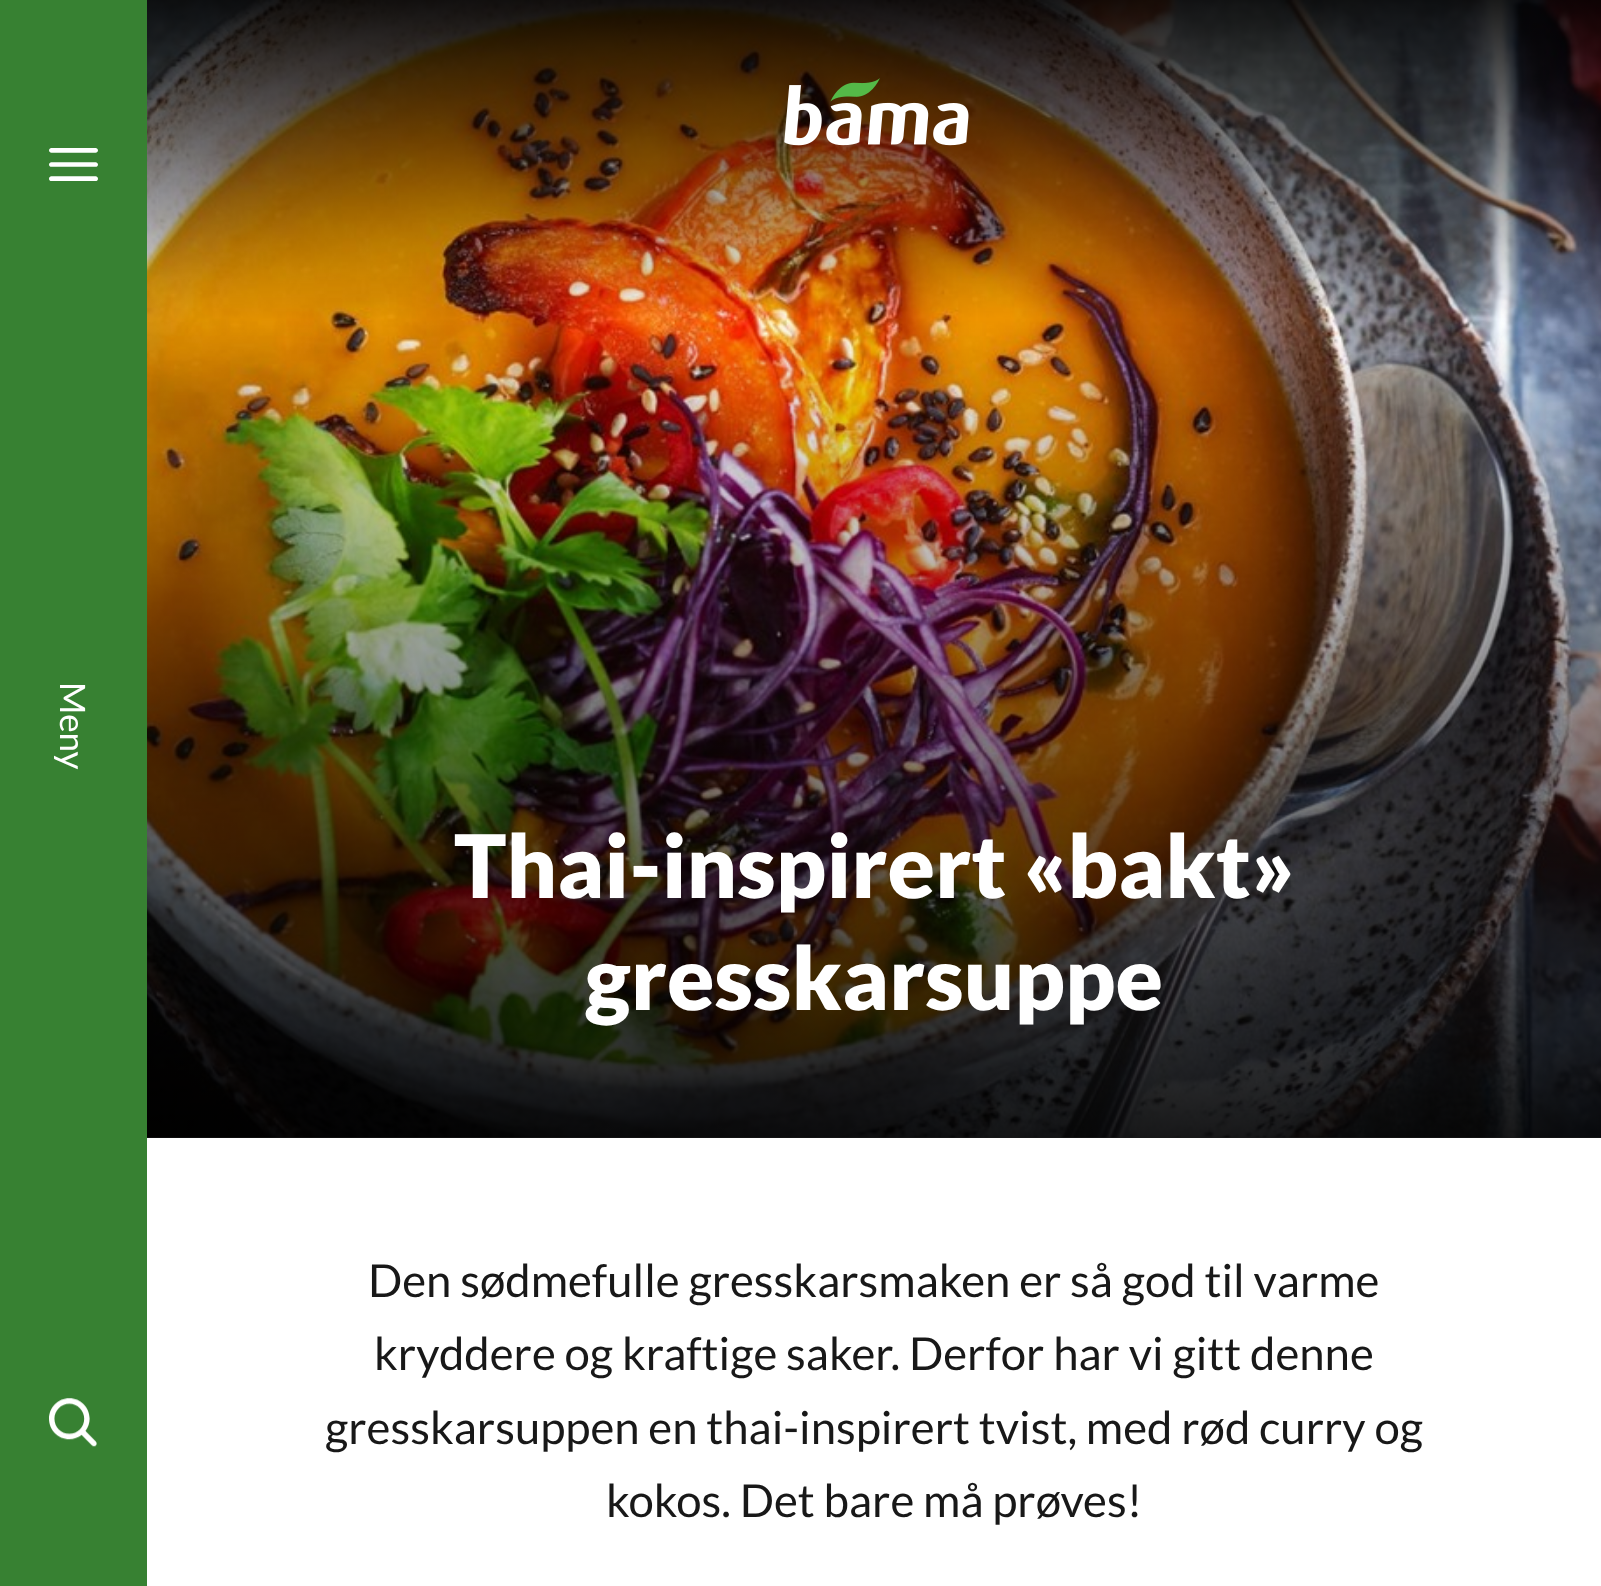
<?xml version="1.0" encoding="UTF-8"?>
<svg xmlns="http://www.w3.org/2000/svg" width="1601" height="1586">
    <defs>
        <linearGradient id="g1" gradientUnits="userSpaceOnUse" x1="874" y1="0" x2="874" y2="1138"><stop offset="0" stop-color="#000000" stop-opacity="0.9"/><stop offset="0.28" stop-color="#000000" stop-opacity="0"/><stop offset="1" stop-color="#000000" stop-opacity="0.9"/></linearGradient>
    </defs>
    <rect width="100%" height="100%" fill="#FFFFFF"/>
    <image x="147" y="0" width="1454" height="1138" href="img_04.png"/>
    <rect x="147" y="0" width="1454" height="1138" fill="url(#g1)"/>
    <image x="784" y="78" width="185" height="68" href="img_01.png"/>
    <rect x="0" y="0" width="147" height="1586" fill="#378132"/>
    <image x="49" y="148" width="49" height="33" href="img_02.png"/>
    <text x="60" y="682" transform="rotate(90 60 682)" font-family="Lato" font-size="35" fill="#FFFFFF">Meny</text>
    <image x="49" y="1398" width="48" height="49" href="img_03.png"/>
    <text x="454" y="898" font-family="Lato" font-size="87.5" font-weight="900" fill="#FFFFFF">Thai-inspirert «bakt»</text>
    <text x="585" y="1010" font-family="Lato" font-size="87.5" font-weight="900" fill="#FFFFFF">gresskarsuppe</text>
    <text x="368" y="1297" font-family="Lato" font-size="45.5" fill="#181818">Den sødmefulle gresskarsmaken er så god til varme</text>
    <text x="374" y="1370" font-family="Lato" font-size="45.5" fill="#181818">kryddere og kraftige saker. Derfor har vi gitt denne</text>
    <text x="325" y="1444" font-family="Lato" font-size="45.5" fill="#181818">gresskarsuppen en thai-inspirert tvist, med rød curry og</text>
    <text x="606" y="1517" font-family="Lato" font-size="45.5" fill="#181818">kokos. Det bare må prøves!</text>
</svg>
